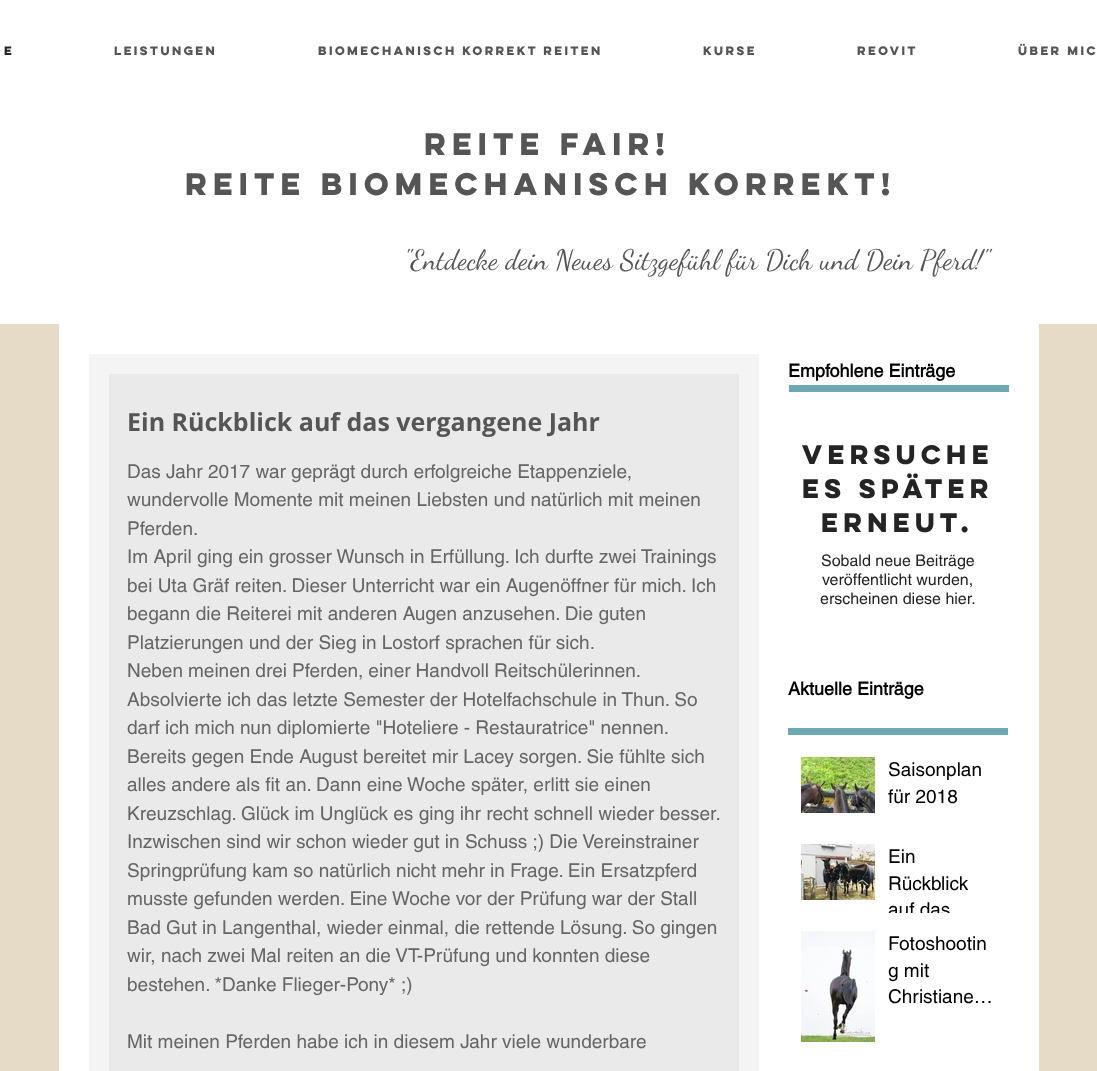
<?xml version="1.0" encoding="UTF-8"?>
<svg xmlns="http://www.w3.org/2000/svg" width="1097" height="1071">
    <defs>
        <clipPath id="clip1"><rect x="888" y="843" width="108" height="70"/></clipPath>
    </defs>
    <rect width="100%" height="100%" fill="#E6DBC7"/>
    <rect x="0" y="0" width="1097" height="324" fill="#FFFFFF"/>
    <text x="4" y="55" font-family="'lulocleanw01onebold'" font-size="11" font-weight="700" fill="#242424">e</text>
    <text x="114" y="55" font-family="'lulocleanw01onebold'" font-size="11" font-weight="700" fill="#555555">Leistungen</text>
    <text x="318" y="55" font-family="'lulocleanw01onebold'" font-size="11" font-weight="700" fill="#555555">Biomechanisch korrekt Reiten</text>
    <text x="703" y="55" font-family="'lulocleanw01onebold'" font-size="11" font-weight="700" fill="#555555">Kurse</text>
    <text x="857" y="55" font-family="'lulocleanw01onebold'" font-size="11" font-weight="700" fill="#555555">ReoVit</text>
    <text x="1018" y="55" font-family="'lulocleanw01onebold'" font-size="11" font-weight="700" fill="#555555">Über mic</text>
    <text x="424" y="155" font-family="'lulocleanw01onebold'" font-size="28" font-weight="700" fill="#555555">Reite FAIr!</text>
    <text x="185" y="195" font-family="'lulocleanw01onebold'" font-size="28" font-weight="700" fill="#555555">REITE BIOMECHANISCH KORREKT!</text>
    <text x="404" y="269" font-family="Dancing Script" font-size="28" fill="#555555">"Entdecke dein Neues Sitzgefühl für Dich und Dein Pferd!"</text>
    <rect x="59" y="324" width="980" height="747" fill="#FFFFFF"/>
    <text x="788" y="377" font-family="helvetica" font-size="18" font-weight="700" fill="#000000">Empfohlene Einträge</text>
    <rect x="789" y="385" width="220" height="7" fill="#6BA8B2"/>
    <rect x="89" y="354" width="670" height="717" fill="#F4F4F4"/>
    <rect x="109" y="374" width="630" height="697" fill="#EAEAEA"/>
    <text x="127" y="431" font-family="Open Sans" font-size="25" font-weight="700" fill="#555555">Ein Rückblick auf das vergangene Jahr</text>
    <text font-family="helvetica" font-size="19" fill="#666666">
        <tspan x="127" y="478">Das Jahr 2017 war geprägt durch erfolgreiche Etappenziele,</tspan>
        <tspan x="127" y="506">wundervolle Momente mit meinen Liebsten und natürlich mit meinen</tspan>
        <tspan x="127" y="535">Pferden.</tspan>
        <tspan x="127" y="563">Im April ging ein grosser Wunsch in Erfüllung. Ich durfte zwei Trainings</tspan>
        <tspan x="127" y="592">bei Uta Gräf reiten. Dieser Unterricht war ein Augenöffner für mich. Ich</tspan>
        <tspan x="127" y="620">begann die Reiterei mit anderen Augen anzusehen. Die guten</tspan>
        <tspan x="127" y="649">Platzierungen und der Sieg in Lostorf sprachen für sich.</tspan>
        <tspan x="127" y="677" word-spacing="-0.25">Neben meinen drei Pferden, einer Handvoll Reitschülerinnen.</tspan>
        <tspan x="127" y="706">Absolvierte ich das letzte Semester der Hotelfachschule in Thun. So</tspan>
        <tspan x="127" y="734">darf ich mich nun diplomierte "Hoteliere - Restauratrice" nennen.</tspan>
        <tspan x="127" y="763">Bereits gegen Ende August bereitet mir Lacey sorgen. Sie fühlte sich</tspan>
        <tspan x="127" y="791">alles andere als fit an. Dann eine Woche später, erlitt sie einen</tspan>
        <tspan x="127" y="820">Kreuzschlag. Glück im Unglück es ging ihr recht schnell wieder besser.</tspan>
        <tspan x="127" y="848">Inzwischen sind wir schon wieder gut in Schuss ;) Die Vereinstrainer</tspan>
        <tspan x="127" y="877">Springprüfung kam so natürlich nicht mehr in Frage. Ein Ersatzpferd</tspan>
        <tspan x="127" y="905">musste gefunden werden. Eine Woche vor der Prüfung war der Stall</tspan>
        <tspan x="127" y="934">Bad Gut in Langenthal, wieder einmal, die rettende Lösung. So gingen</tspan>
        <tspan x="127" y="962">wir, nach zwei Mal reiten an die VT-Prüfung und konnten diese</tspan>
        <tspan x="127" y="991">bestehen. *Danke Flieger-Pony* ;)</tspan>
    </text>
    <text x="127" y="1048" font-family="helvetica" font-size="19" fill="#666666">Mit meinen Pferden habe ich in diesem Jahr viele wunderbare</text>
    <text font-family="'lulocleanw01onebold'" font-size="24" font-weight="700" fill="#242424">
        <tspan x="802" y="464">Versuche</tspan>
        <tspan x="802" y="498">es später</tspan>
    </text>
    <text x="821" y="532" font-family="'lulocleanw01onebold'" font-size="24" font-weight="700" fill="#242424">erneut.</text>
    <text x="821" y="566" font-family="helvetica" font-size="16" fill="#242424">Sobald neue Beiträge</text>
    <text x="822" y="585" font-family="helvetica" font-size="16" fill="#242424">veröffentlicht wurden,</text>
    <text x="820" y="604" font-family="helvetica" font-size="16" fill="#242424">erscheinen diese hier.</text>
    <text x="788" y="695" font-family="helvetica" font-size="18" font-weight="700" fill="#000000">Aktuelle Einträge</text>
    <rect x="788" y="728" width="220" height="7" fill="#6BA8B2"/>
    <image x="801" y="757" width="74" height="56" href="img_01.png"/>
    <text font-family="helvetica" font-size="19" fill="#000000">
        <tspan x="888" y="776">Saisonplan</tspan>
        <tspan x="888" y="803">für 2018</tspan>
    </text>
    <image x="801" y="844" width="74" height="56" href="img_02.png"/>
    <text font-family="helvetica" font-size="19" fill="#000000">
        <tspan x="888" y="863">Ein</tspan>
        <tspan x="888" y="890">Rückblick</tspan>
    </text>
    <g clip-path="url(#clip1)">
        <text x="888" y="916" font-family="helvetica" font-size="19" fill="#000000">auf das</text>
    </g>
    <image x="801" y="931" width="74" height="111" href="img_03.png"/>
    <text font-family="helvetica" font-size="19" fill="#000000">
        <tspan x="888" y="950">Fotoshootin</tspan>
        <tspan x="888" y="977">g mit</tspan>
        <tspan x="888" y="1003">Christiane…</tspan>
    </text>
</svg>
